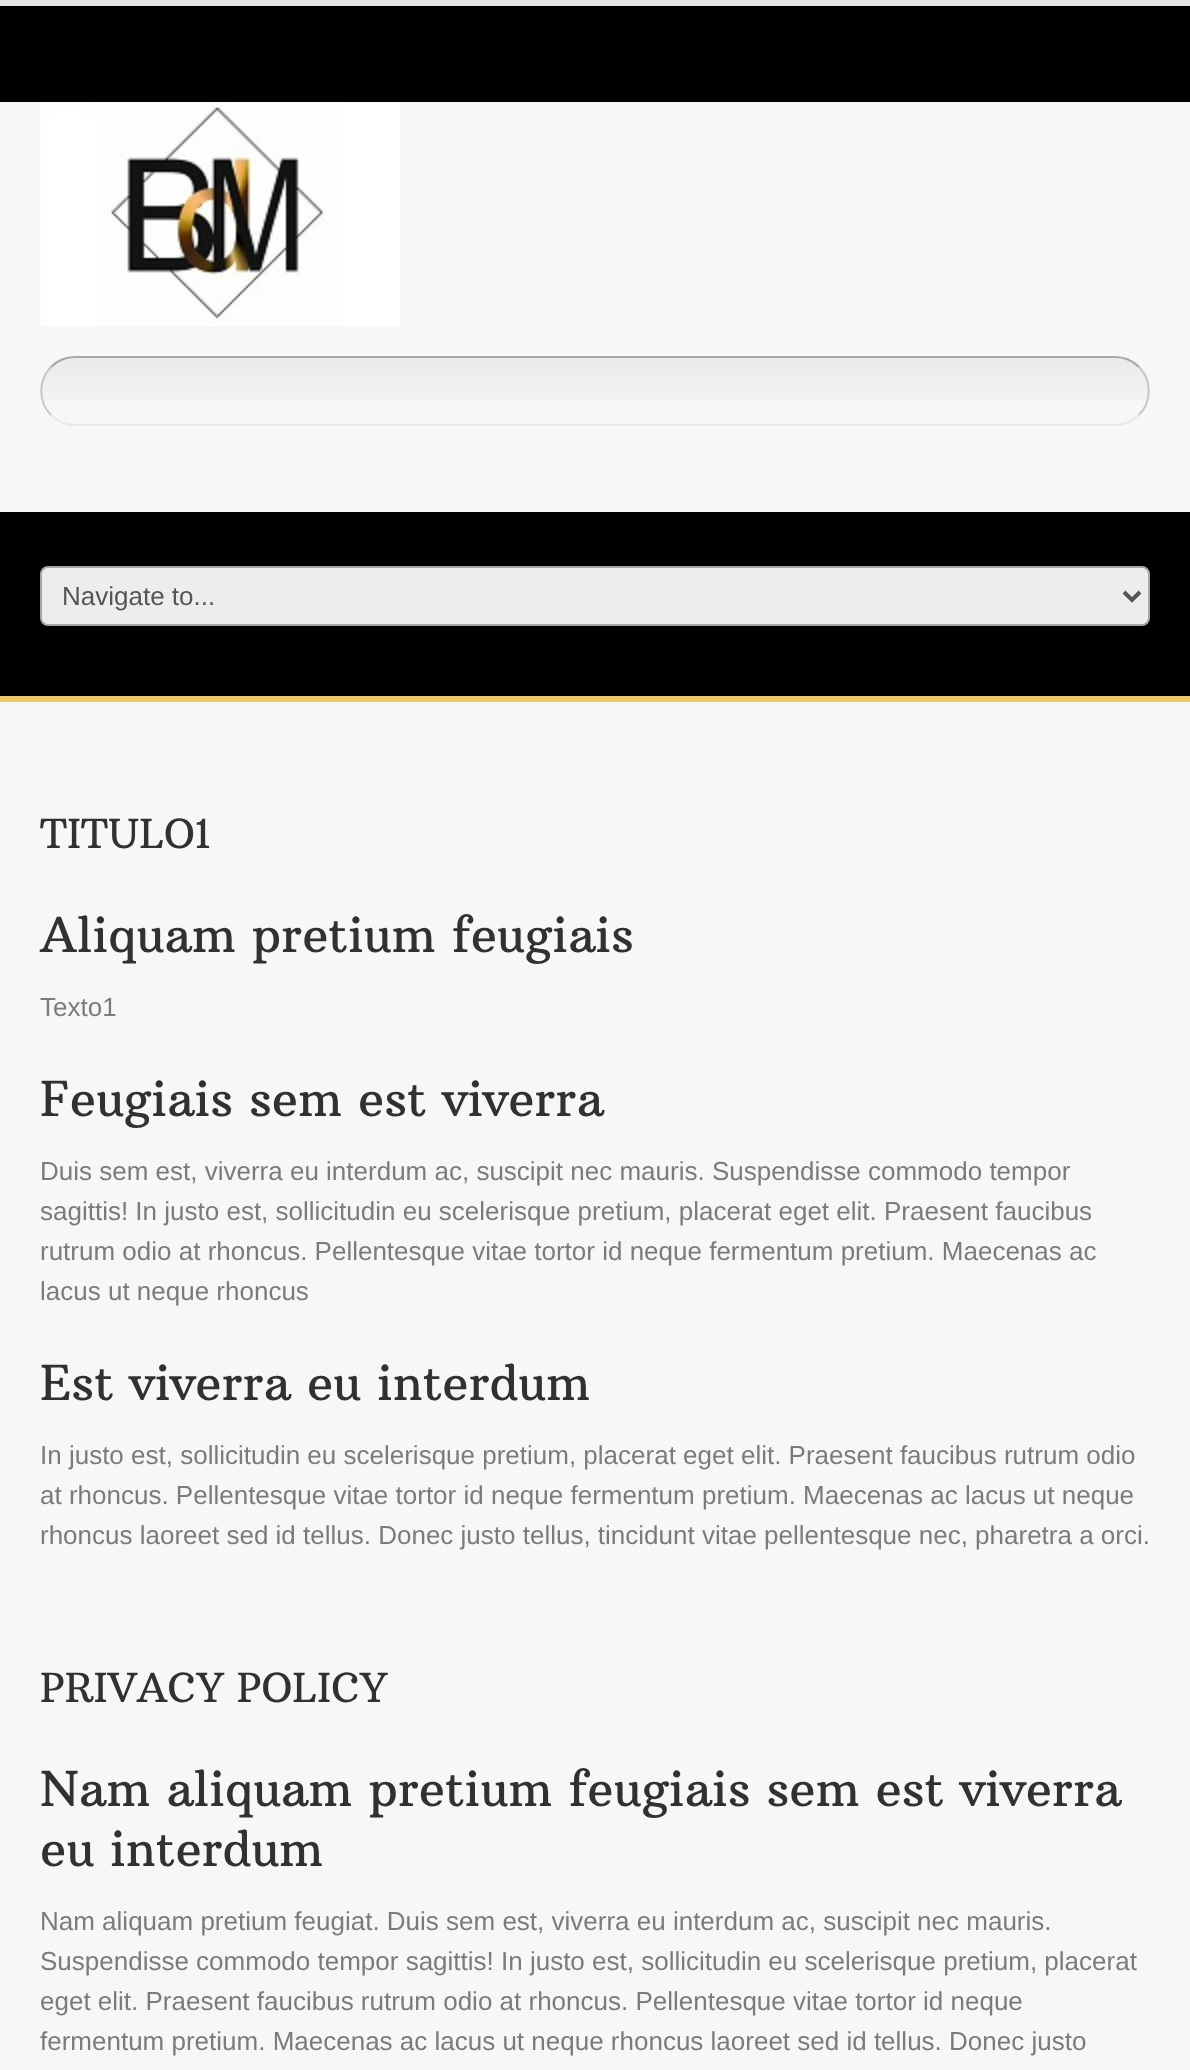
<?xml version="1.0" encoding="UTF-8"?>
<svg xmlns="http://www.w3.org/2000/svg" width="1190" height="2070">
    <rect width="100%" height="100%" fill="#F7F7F6"/>
    <rect x="0" y="6" width="1190" height="96" fill="#000000"/>
    <rect x="0" y="0" width="1190" height="6" fill="#E3E3E3"/>
    <image x="40" y="102" width="360" height="224" href="img_01.png"/>
    <image x="40" y="358" width="1110" height="42" href="img_02.png"/>
    <path d="M 51 367 C 57.5 360.5 66 357 75 357 H 1115 C 1124 357 1132.5 360.5 1139 367" fill="none" stroke="#A7A7A7" stroke-width="2"/>
    <path d="M 1139 367 C 1152 380 1152 402 1139 415" fill="none" stroke="#C7C7C7" stroke-width="2"/>
    <path d="M 1139 415 C 1132.5 421.5 1124 425 1115 425 H 75 C 66 425 57.5 421.5 51 415" fill="none" stroke="#E9E9E8" stroke-width="2"/>
    <path d="M 51 415 C 38 402 38 380 51 367" fill="none" stroke="#C7C7C7" stroke-width="2"/>
    <rect x="0" y="512" width="1190" height="184" fill="#000000"/>
    <rect x="0" y="696" width="1190" height="6" fill="#ECC867"/>
    <rect x="41" y="567" width="1108" height="58" rx="7" fill="#EDEDED" stroke="#A6A6A6" stroke-width="2"/>
    <path d="M 1124 592 L 1132 600 L 1140 592" fill="none" stroke="#555555" stroke-width="4"/>
    <text x="62" y="605" font-family="Liberation Sans" font-size="26" fill="#555555">Navigate to...</text>
    <text x="40" y="848" font-family="Arbutus Slab" font-size="40" fill="#313131">TITULO1</text>
    <text x="40" y="952" font-family="Arbutus Slab" font-size="48" fill="#313131">Aliquam pretium feugiais</text>
    <text x="40" y="1016" font-family="Liberation Sans" font-size="26" fill="#7B7B7B">Texto1</text>
    <text x="40" y="1116" font-family="Arbutus Slab" font-size="48" fill="#313131">Feugiais sem est viverra</text>
    <text font-family="Liberation Sans" font-size="26" fill="#7B7B7B">
        <tspan x="40" y="1180">Duis sem est, viverra eu interdum ac, suscipit nec mauris. Suspendisse commodo tempor</tspan>
        <tspan x="40" y="1220">sagittis! In justo est, sollicitudin eu scelerisque pretium, placerat eget elit. Praesent faucibus</tspan>
        <tspan x="40" y="1260">rutrum odio at rhoncus. Pellentesque vitae tortor id neque fermentum pretium. Maecenas ac</tspan>
        <tspan x="40" y="1300">lacus ut neque rhoncus</tspan>
    </text>
    <text x="40" y="1400" font-family="Arbutus Slab" font-size="48" fill="#313131">Est viverra eu interdum</text>
    <text font-family="Liberation Sans" font-size="26" fill="#7B7B7B">
        <tspan x="40" y="1464">In justo est, sollicitudin eu scelerisque pretium, placerat eget elit. Praesent faucibus rutrum odio</tspan>
        <tspan x="40" y="1504">at rhoncus. Pellentesque vitae tortor id neque fermentum pretium. Maecenas ac lacus ut neque</tspan>
        <tspan x="40" y="1544">rhoncus laoreet sed id tellus. Donec justo tellus, tincidunt vitae pellentesque nec, pharetra a orci.</tspan>
    </text>
    <text x="40" y="1702" font-family="Arbutus Slab" font-size="40" fill="#313131">PRIVACY POLICY</text>
    <text font-family="Arbutus Slab" font-size="48" fill="#313131">
        <tspan x="40" y="1806">Nam aliquam pretium feugiais sem est viverra</tspan>
        <tspan x="40" y="1866">eu interdum</tspan>
    </text>
    <text font-family="Liberation Sans" font-size="26" fill="#7B7B7B">
        <tspan x="40" y="1930">Nam aliquam pretium feugiat. Duis sem est, viverra eu interdum ac, suscipit nec mauris.</tspan>
        <tspan x="40" y="1970">Suspendisse commodo tempor sagittis! In justo est, sollicitudin eu scelerisque pretium, placerat</tspan>
        <tspan x="40" y="2010">eget elit. Praesent faucibus rutrum odio at rhoncus. Pellentesque vitae tortor id neque</tspan>
        <tspan x="40" y="2050">fermentum pretium. Maecenas ac lacus ut neque rhoncus laoreet sed id tellus. Donec justo</tspan>
    </text>
</svg>
